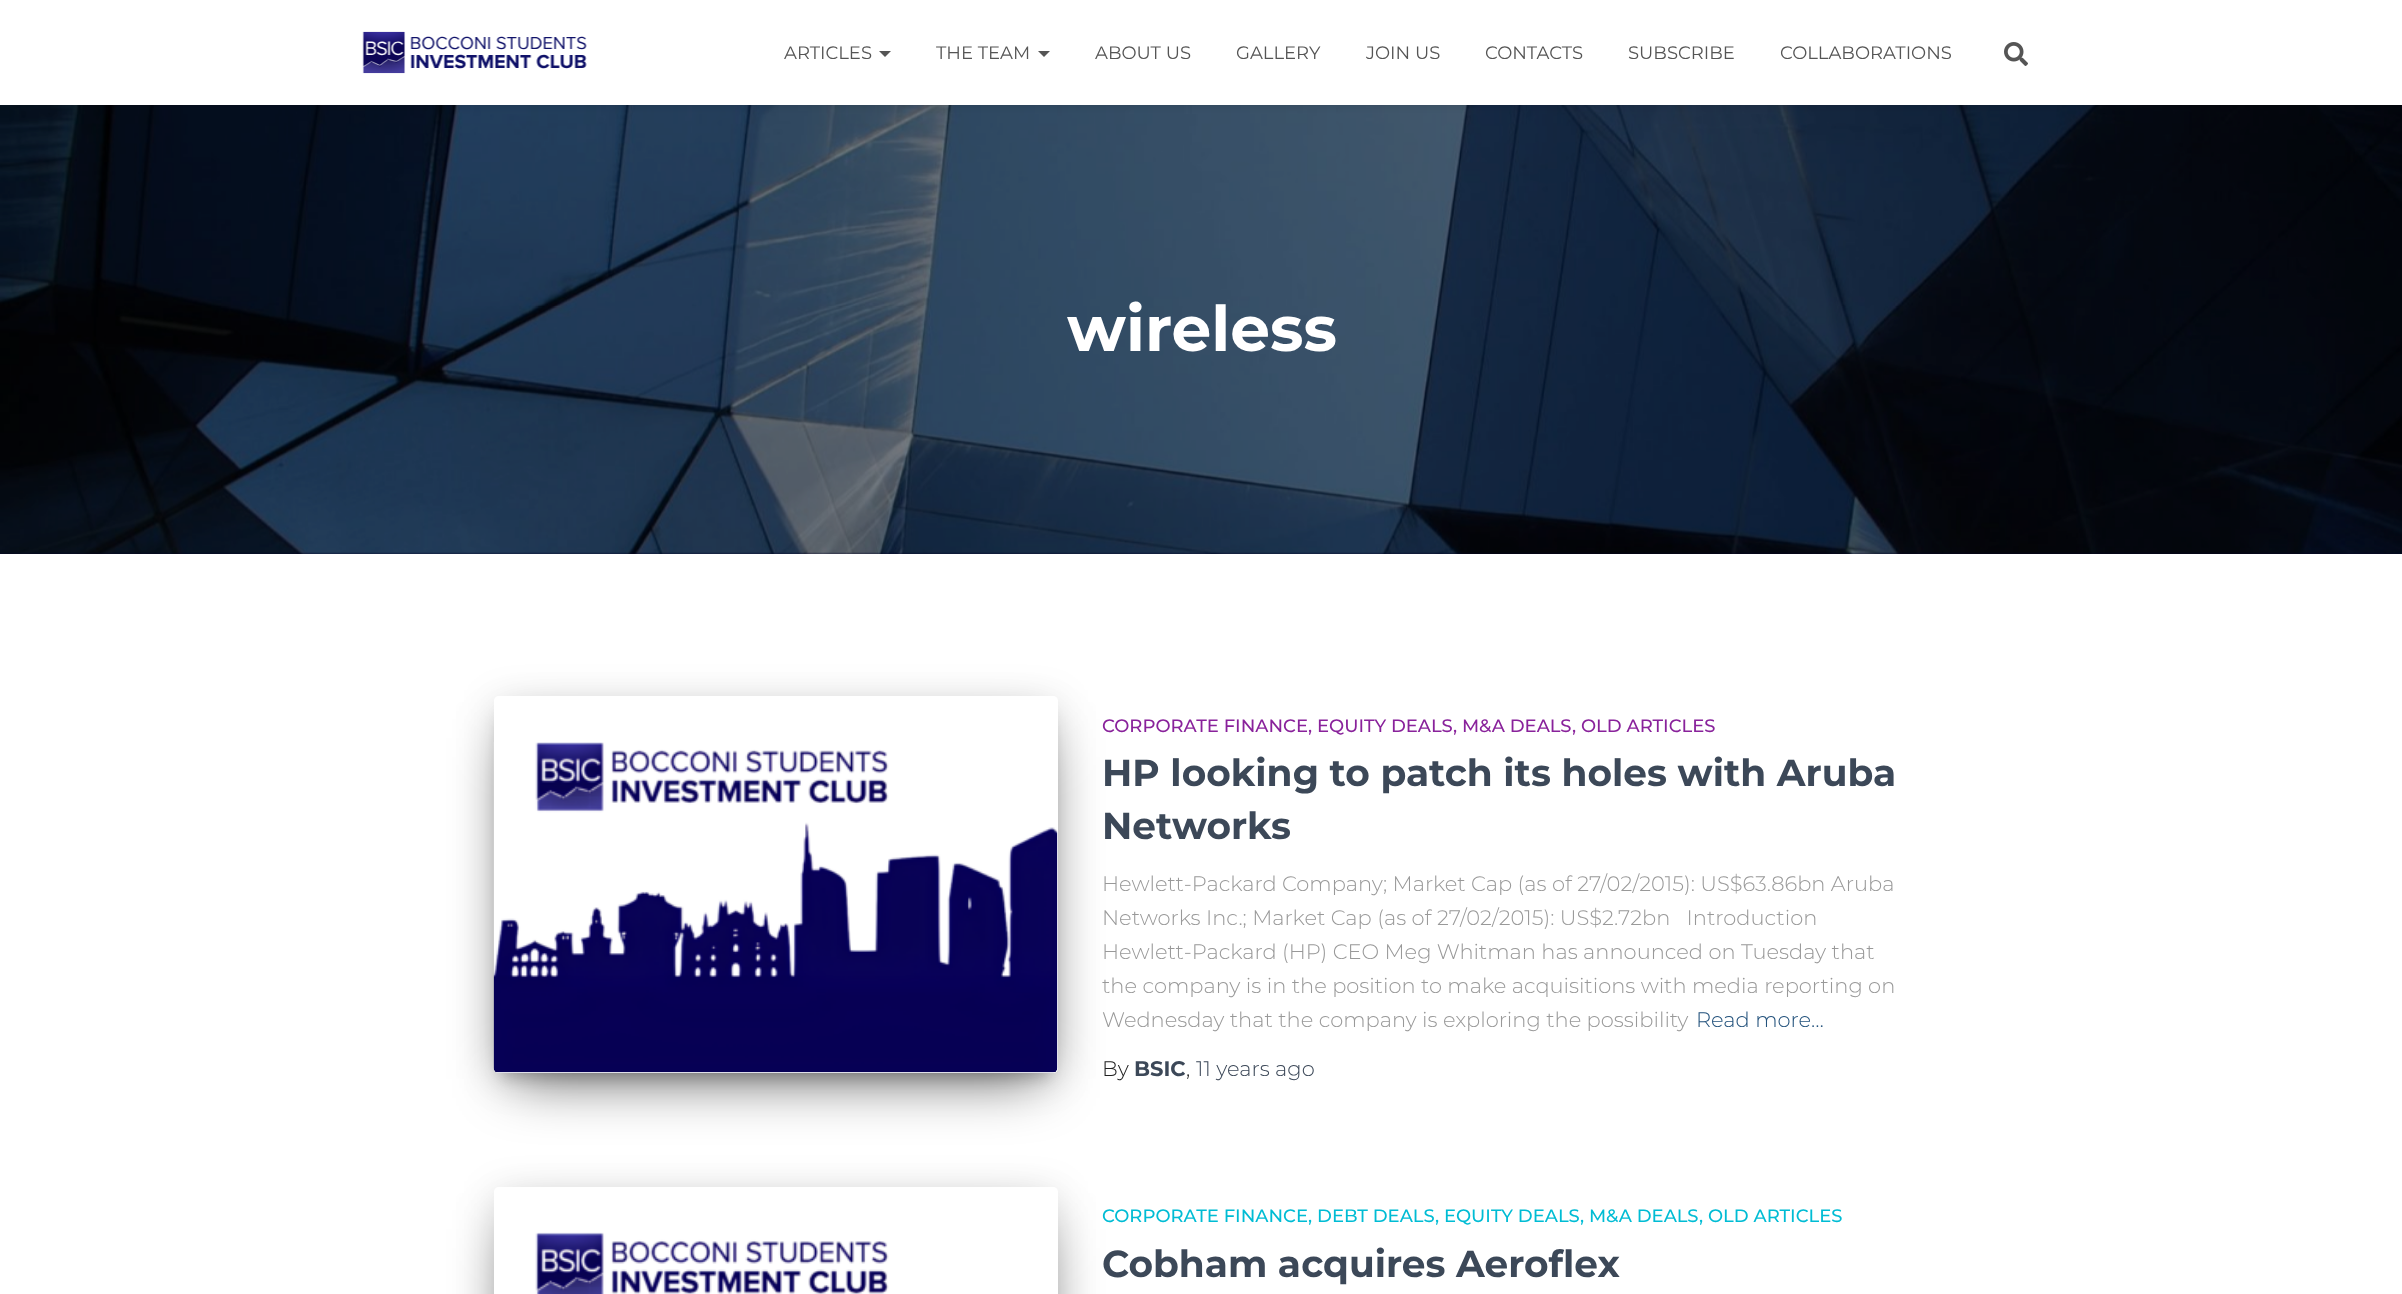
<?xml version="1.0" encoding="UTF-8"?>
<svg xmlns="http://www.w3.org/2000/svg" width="2402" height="1294">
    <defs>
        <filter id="blur1" x="-50%" y="-200%" width="200%" height="500%"><feGaussianBlur stdDeviation="7.5"/></filter>
        <clipPath id="clip1"><path d="M 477 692 H 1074 V 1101 H 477 Z M 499 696 H 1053 C 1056 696 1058 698 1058 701 V 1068 C 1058 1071 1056 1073 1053 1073 H 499 C 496 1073 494 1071 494 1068 V 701 C 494 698 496 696 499 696 Z" clip-rule="evenodd"/></clipPath>
        <clipPath id="clip2"><path d="M 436 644 H 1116 V 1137 H 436 Z M 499 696 H 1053 C 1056 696 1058 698 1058 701 V 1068 C 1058 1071 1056 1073 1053 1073 H 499 C 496 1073 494 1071 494 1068 V 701 C 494 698 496 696 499 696 Z" clip-rule="evenodd"/></clipPath>
        <filter id="blur2" x="-50%" y="-200%" width="200%" height="500%"><feGaussianBlur stdDeviation="19"/></filter>
        <clipPath id="clip3"><path d="M 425 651 H 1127 V 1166 H 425 Z M 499 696 H 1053 C 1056 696 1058 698 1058 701 V 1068 C 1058 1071 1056 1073 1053 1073 H 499 C 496 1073 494 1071 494 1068 V 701 C 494 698 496 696 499 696 Z" clip-rule="evenodd"/></clipPath>
        <filter id="blur3" x="-50%" y="-200%" width="200%" height="500%"><feGaussianBlur stdDeviation="28.5"/></filter>
        <clipPath id="clip4"><path d="M 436 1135 H 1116 V 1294 H 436 Z M 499 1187 H 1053 C 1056 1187 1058 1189 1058 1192 V 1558 C 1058 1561 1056 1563 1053 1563 H 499 C 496 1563 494 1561 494 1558 V 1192 C 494 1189 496 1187 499 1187 Z" clip-rule="evenodd"/></clipPath>
        <clipPath id="clip5"><path d="M 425 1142 H 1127 V 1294 H 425 Z M 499 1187 H 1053 C 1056 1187 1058 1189 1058 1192 V 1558 C 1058 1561 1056 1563 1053 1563 H 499 C 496 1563 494 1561 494 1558 V 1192 C 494 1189 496 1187 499 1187 Z" clip-rule="evenodd"/></clipPath>
    </defs>
    <rect width="100%" height="100%" fill="#07062A"/>
    <image x="0" y="105" width="2402" height="449" href="img_03.png"/>
    <rect x="9" y="11" width="2385" height="87" fill="#000000" fill-opacity="0.42" filter="url(#blur1)"/>
    <rect x="0" y="0" width="2402" height="105" fill="#FFFFFF"/>
    <image x="362" y="31" width="225" height="43" href="img_01.png"/>
    <text x="784" y="59" font-family="Montserrat" font-size="18" fill="#555555">ARTICLES</text>
    <path d="M 879 51 H 891 L 885 57 Z" fill="#555555"/>
    <text x="936" y="59" font-family="Montserrat" font-size="18" fill="#555555">THE TEAM</text>
    <path d="M 1038 51 H 1050 L 1044 57 Z" fill="#555555"/>
    <text x="1095" y="59" font-family="Montserrat" font-size="18" fill="#555555">ABOUT US</text>
    <text x="1236" y="59" font-family="Montserrat" font-size="18" fill="#555555">GALLERY</text>
    <text x="1366" y="59" font-family="Montserrat" font-size="18" fill="#555555">JOIN US</text>
    <text x="1485" y="59" font-family="Montserrat" font-size="18" fill="#555555">CONTACTS</text>
    <text x="1628" y="59" font-family="Montserrat" font-size="18" fill="#555555">SUBSCRIBE</text>
    <text x="1780" y="59" font-family="Montserrat" font-size="18" fill="#555555">COLLABORATIONS</text>
    <image x="2004" y="42" width="24" height="24" href="img_02.png"/>
    <text x="1067" y="351" font-family="Montserrat" font-size="63" font-weight="700" fill="#FFFFFF">wireless</text>
    <rect x="0" y="554" width="2402" height="740" fill="#FFFFFF"/>
    <g clip-path="url(#clip1)">
        <rect x="501" y="716" width="549" height="361" fill="#000000" fill-opacity="0.2" filter="url(#blur1)"/>
    </g>
    <g clip-path="url(#clip2)">
        <rect x="494" y="702" width="564" height="377" rx="5" fill="#000000" fill-opacity="0.12" filter="url(#blur2)"/>
    </g>
    <g clip-path="url(#clip3)">
        <rect x="512" y="738" width="528" height="341" fill="#000000" fill-opacity="0.56" filter="url(#blur3)"/>
    </g>
    <image x="493" y="742" width="565" height="331" href="img_04.png"/>
    <text x="1102" y="732" font-family="Montserrat" font-size="18" font-weight="500" fill="#89229B">CORPORATE FINANCE, EQUITY DEALS</text>
    <text x="1453" y="732" font-family="Montserrat" font-size="18" font-weight="500" fill="#89229B">, M&amp;A DEALS</text>
    <text x="1572" y="732" font-family="Montserrat" font-size="18" font-weight="500" fill="#89229B">, OLD ARTICLES</text>
    <text font-family="Montserrat" font-size="37.5" font-weight="700" fill="#3C4858">
        <tspan x="1102" y="786">HP looking to patch its holes with Aruba</tspan>
        <tspan x="1102" y="839">Networks</tspan>
    </text>
    <text font-family="Montserrat" font-size="21" font-weight="300" fill="#999999" xml:space="preserve"><tspan x="1102" y="891">Hewlett-Packard Company; Market Cap (as of 27/02/2015): US$63.86bn Aruba</tspan><tspan x="1102" y="925">Networks Inc.; Market Cap (as of 27/02/2015): US$2.72bn   Introduction</tspan><tspan x="1102" y="959">Hewlett-Packard (HP) CEO Meg Whitman has announced on Tuesday that</tspan><tspan x="1102" y="993">the company is in the position to make acquisitions with media reporting on</tspan><tspan x="1102" y="1027">Wednesday that the company is exploring the possibility</tspan></text>
    <text x="1696" y="1027" font-family="Montserrat" font-size="21" font-weight="300" fill="#23527C">Read more…</text>
    <text x="1102" y="1076" font-family="Montserrat" font-size="21" font-weight="300" fill="#212121">By</text>
    <text x="1134" y="1076" font-family="Montserrat" font-size="21" font-weight="700" fill="#3C4858">BSIC</text>
    <text x="1186" y="1076" font-family="Montserrat" font-size="21" font-weight="300" fill="#212121">,</text>
    <text x="1196" y="1076" font-family="Montserrat" font-size="21" font-weight="300" fill="#3C4858">11 years ago</text>
    <g clip-path="url(#clip4)">
        <rect x="494" y="1193" width="564" height="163" rx="5" fill="#000000" fill-opacity="0.12" filter="url(#blur2)"/>
    </g>
    <g clip-path="url(#clip5)">
        <rect x="512" y="1229" width="528" height="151" fill="#000000" fill-opacity="0.56" filter="url(#blur3)"/>
    </g>
    <image x="535" y="1232" width="354" height="62" href="img_05.png"/>
    <text x="1102" y="1222" font-family="Montserrat" font-size="18" font-weight="500" fill="#00BCD4">CORPORATE FINANCE, DEBT DEALS</text>
    <text x="1435" y="1222" font-family="Montserrat" font-size="18" font-weight="500" fill="#00BCD4">, EQUITY DEALS</text>
    <text x="1580" y="1222" font-family="Montserrat" font-size="18" font-weight="500" fill="#00BCD4">, M&amp;A DEALS</text>
    <text x="1699" y="1222" font-family="Montserrat" font-size="18" font-weight="500" fill="#00BCD4">, OLD ARTICLES</text>
    <text x="1102" y="1277" font-family="Montserrat" font-size="37.5" font-weight="700" fill="#3C4858">Cobham acquires Aeroflex</text>
</svg>
